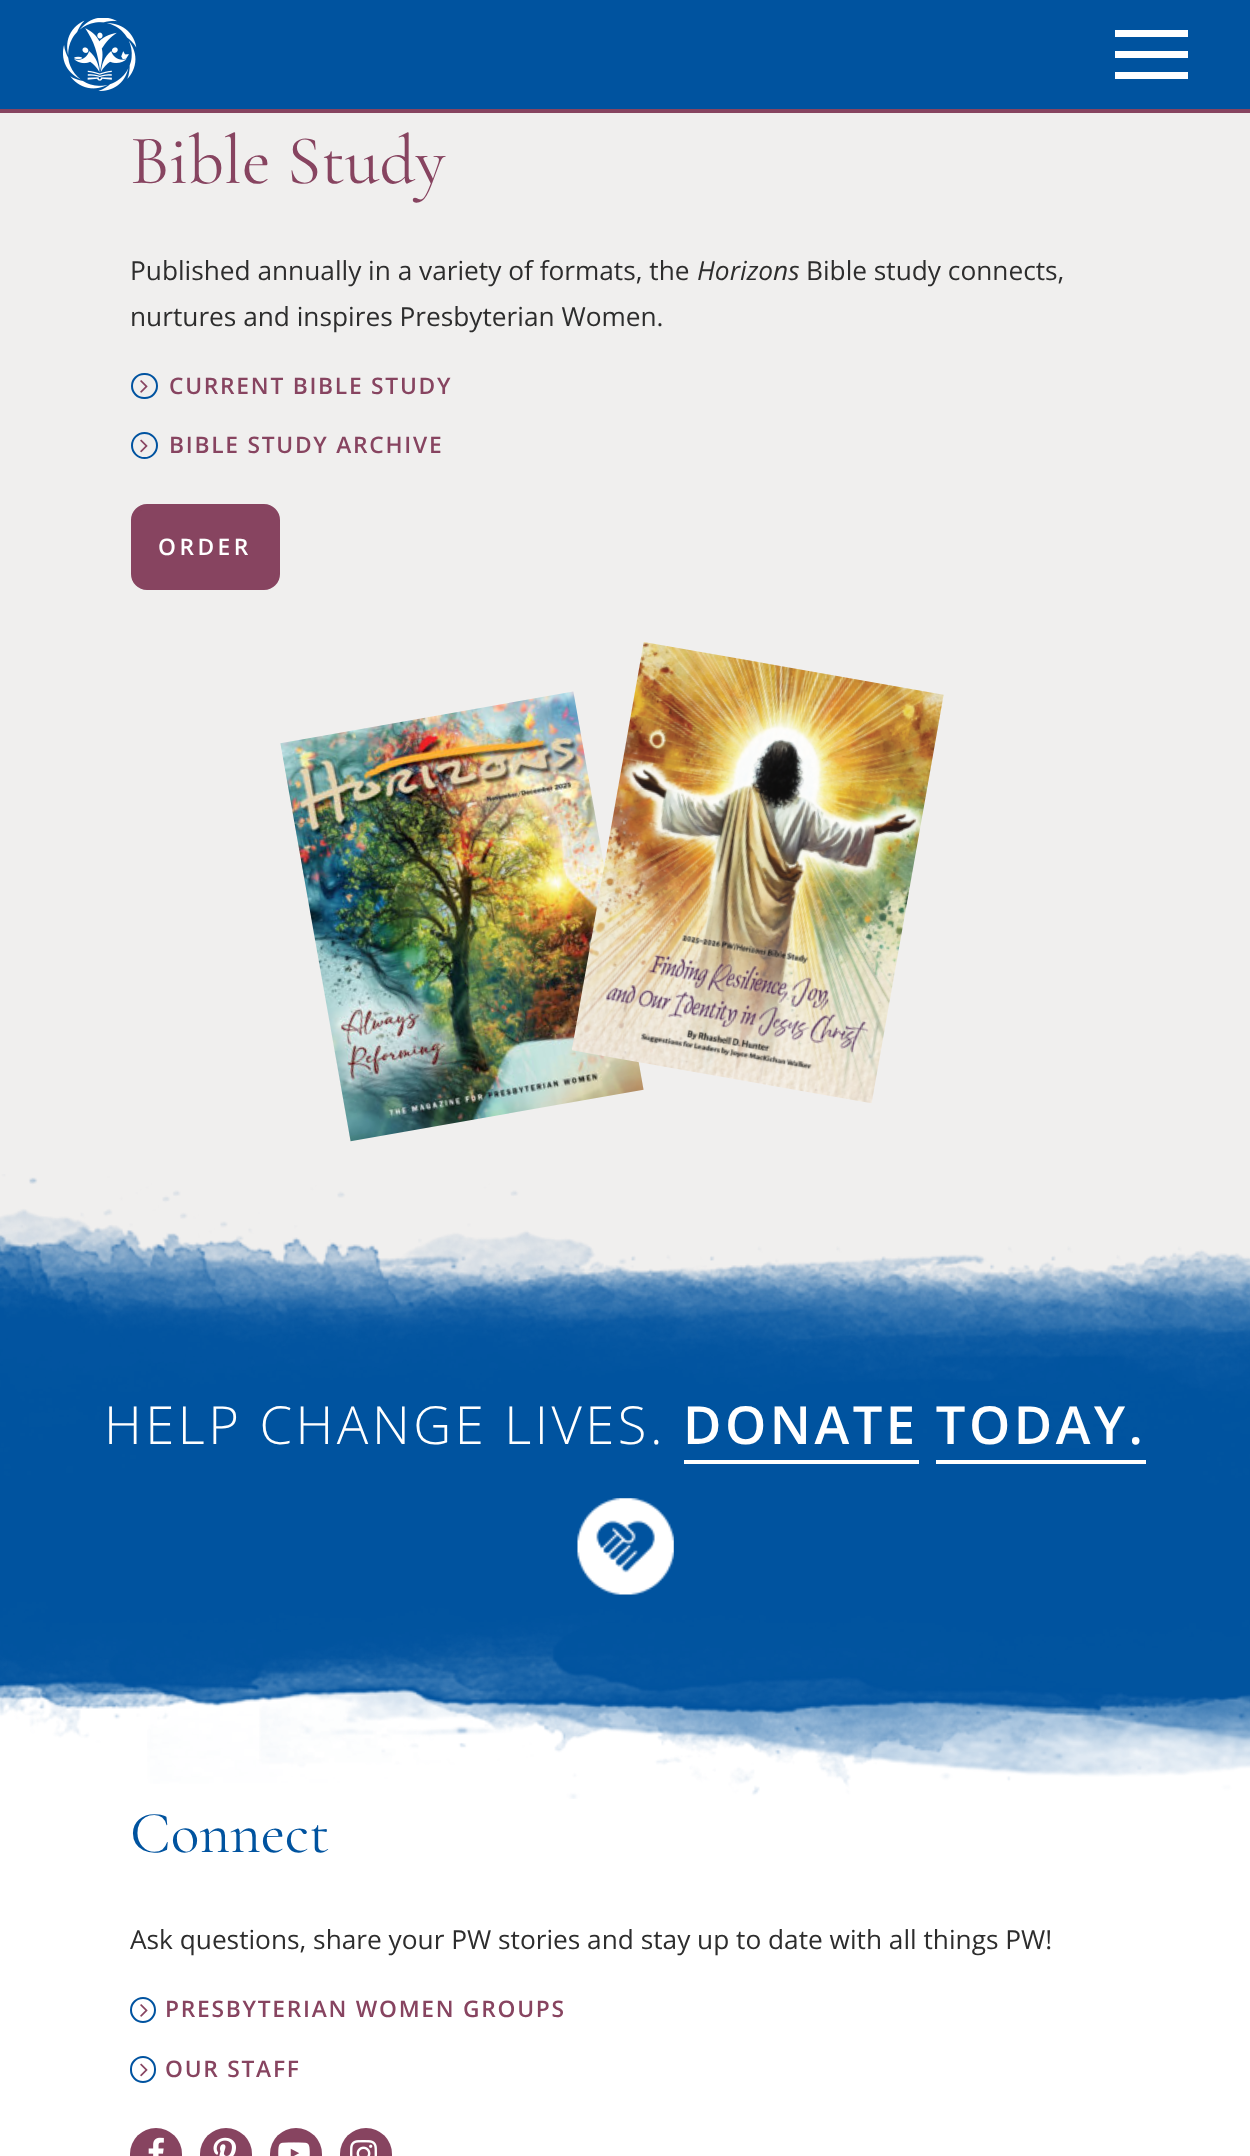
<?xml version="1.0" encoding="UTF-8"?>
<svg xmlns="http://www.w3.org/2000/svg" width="1250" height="2156">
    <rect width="100%" height="100%" fill="#F0EFEE"/>
    <rect x="0" y="0" width="1250" height="109" fill="#00539F"/>
    <rect x="0" y="109" width="1250" height="4" fill="#874460"/>
    <image x="63" y="18" width="74" height="73" href="img_01.png"/>
    <rect x="1115" y="51" width="73" height="7" fill="#FFFFFF"/>
    <rect x="1115" y="30" width="73" height="7" fill="#FFFFFF"/>
    <rect x="1115" y="72" width="73" height="7" fill="#FFFFFF"/>
    <text x="130" y="183" font-family="Cormorant Garamond" font-size="70" font-weight="300" fill="#874460">Bible Study</text>
    <text x="130" y="280" font-family="Open Sans" font-size="26.25" fill="#2D2D2D">Published annually in a variety of formats, the</text>
    <text x="697" y="280" font-family="Open Sans" font-size="26.25" font-style="italic" fill="#2D2D2D">Horizons</text>
    <text x="806" y="280" font-family="Open Sans" font-size="26.25" fill="#2D2D2D">Bible study connects,</text>
    <text x="130" y="326" font-family="Open Sans" font-size="26.25" fill="#2D2D2D">nurtures and inspires Presbyterian Women.</text>
    <rect x="132" y="374" width="25" height="24" rx="12" fill="none" stroke="#0053A0" stroke-width="2"/>
    <image x="140" y="380" width="8" height="13" href="img_02.png"/>
    <text x="169" y="394" font-family="Open Sans" font-size="22.75" font-weight="600" letter-spacing="1.75" fill="#874460">CURRENT BIBLE STUDY</text>
    <circle cx="144.5" cy="445.5" r="12.5" fill="none" stroke="#0053A0" stroke-width="2"/>
    <image x="140" y="439" width="8" height="14" href="img_03.png"/>
    <text x="169" y="453" font-family="Open Sans" font-size="22.75" font-weight="600" letter-spacing="1.75" fill="#874460">BIBLE STUDY ARCHIVE</text>
    <rect x="133.5" y="506.5" width="144" height="81" rx="13.5" fill="#874460" stroke="#874460" stroke-width="5"/>
    <text x="158" y="555" font-family="Open Sans" font-size="22.75" font-weight="600" letter-spacing="3.5" fill="#FFFFFF">ORDER</text>
    <image x="280" y="691" width="364" height="451" href="img_04.png"/>
    <image x="572" y="642" width="372" height="461" href="img_05.png"/>
    <rect x="0" y="1664" width="1250" height="492" fill="#FFFFFF"/>
    <image x="0" y="1174" width="1250" height="625" href="img_06.png"/>
    <text x="104" y="1444" font-family="Open Sans" font-size="52.5" font-weight="300" letter-spacing="3.5" fill="#FFFFFF">HELP CHANGE LIVES.</text>
    <rect x="684" y="1460" width="235" height="4" fill="#FFFFFF"/>
    <text x="683" y="1444" font-family="Open Sans" font-size="52.5" font-weight="600" letter-spacing="3.5" fill="#FFFFFF">DONATE TODAY.</text>
    <rect x="936" y="1460" width="210" height="4" fill="#FFFFFF"/>
    <image x="577" y="1498" width="97" height="97" href="img_07.png"/>
    <text x="130" y="1852" font-family="Cormorant Garamond" font-size="59.5" font-weight="300" fill="#00539F">Connect</text>
    <text x="130" y="1949" font-family="Open Sans" font-size="26.25" fill="#2D2D2D">Ask questions, share your PW stories and stay up to date with all things PW!</text>
    <circle cx="143" cy="2010" r="12" fill="none" stroke="#0053A0" stroke-width="2"/>
    <image x="140" y="2004" width="8" height="13" href="img_08.png"/>
    <text x="165" y="2017" font-family="Open Sans" font-size="22.75" font-weight="600" letter-spacing="1.75" fill="#874460">PRESBYTERIAN WOMEN GROUPS</text>
    <rect x="131" y="2057" width="24" height="25" rx="12" fill="none" stroke="#0053A0" stroke-width="2"/>
    <image x="140" y="2063" width="8" height="14" href="img_09.png"/>
    <text x="165" y="2077" font-family="Open Sans" font-size="22.75" font-weight="600" letter-spacing="1.75" fill="#874460">OUR STAFF</text>
    <rect x="130" y="2128" width="52" height="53" rx="26" fill="#874460"/>
    <image x="148" y="2137" width="16" height="19" href="img_10.png"/>
    <rect x="200" y="2128" width="52" height="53" rx="26" fill="#874460"/>
    <image x="213" y="2137" width="23" height="19" href="img_11.png"/>
    <rect x="270" y="2128" width="52" height="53" rx="26" fill="#874460"/>
    <image x="278" y="2142" width="32" height="14" href="img_12.png"/>
    <rect x="340" y="2128" width="52" height="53" rx="26" fill="#874460"/>
    <image x="350" y="2140" width="27" height="16" href="img_13.png"/>
</svg>
